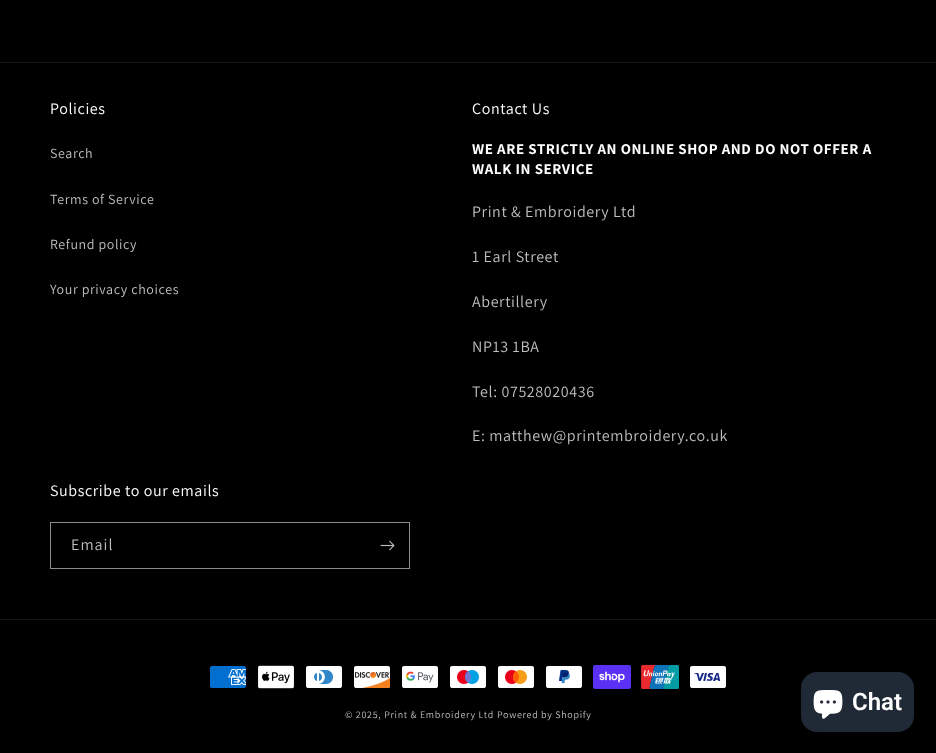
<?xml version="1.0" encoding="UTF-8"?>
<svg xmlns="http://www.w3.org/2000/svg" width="936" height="753">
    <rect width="100%" height="100%" fill="#000000"/>
    <rect x="0" y="62" width="936" height="1" fill="#141414"/>
    <text x="50" y="114" font-family="Assistant" font-size="16" letter-spacing="0.6" fill="#FFFFFF">Policies</text>
    <text x="50" y="158" font-family="Assistant" font-size="14" letter-spacing="0.6" fill="#BFBFBF">Search</text>
    <text x="50" y="204" font-family="Assistant" font-size="14" letter-spacing="0.6" fill="#BFBFBF">Terms of Service</text>
    <text x="50" y="249" font-family="Assistant" font-size="14" letter-spacing="0.6" fill="#BFBFBF">Refund policy</text>
    <text x="50" y="294" font-family="Assistant" font-size="14" letter-spacing="0.6" fill="#BFBFBF">Your privacy choices</text>
    <text x="472" y="114" font-family="Assistant" font-size="16" letter-spacing="0.6" fill="#FFFFFF">Contact Us</text>
    <text font-family="Assistant" font-size="15" font-weight="700" letter-spacing="0.6" fill="#FFFFFF">
        <tspan x="472" y="154">WE ARE STRICTLY AN ONLINE SHOP AND DO NOT OFFER A</tspan>
        <tspan x="472" y="174">WALK IN SERVICE</tspan>
    </text>
    <text x="472" y="217" font-family="Assistant" font-size="16" letter-spacing="0.6" fill="#BFBFBF">Print &amp; Embroidery Ltd</text>
    <text x="472" y="262" font-family="Assistant" font-size="16" letter-spacing="0.6" fill="#BFBFBF">1 Earl Street</text>
    <text x="472" y="307" font-family="Assistant" font-size="16" letter-spacing="0.6" fill="#BFBFBF">Abertillery</text>
    <text x="472" y="352" font-family="Assistant" font-size="16" letter-spacing="0.6" fill="#BFBFBF">NP13 1BA</text>
    <text x="472" y="397" font-family="Assistant" font-size="16" letter-spacing="0.6" fill="#BFBFBF">Tel: 07528020436</text>
    <text x="472" y="441" font-family="Assistant" font-size="16" letter-spacing="0.6" fill="#BFBFBF">E: matthew@printembroidery.co.uk</text>
    <text x="50" y="496" font-family="Assistant" font-size="16" letter-spacing="0.6" fill="#FFFFFF">Subscribe to our emails</text>
    <rect x="50.5" y="522.5" width="359" height="46" fill="none" stroke="#8C8C8C"/>
    <text x="71" y="550" font-family="Assistant" font-size="16" letter-spacing="1" fill="#BFBFBF">Email</text>
    <image x="380" y="540" width="15" height="11" href="img_01.png"/>
    <rect x="0" y="619" width="936" height="1" fill="#141414"/>
    <image x="210" y="666" width="36" height="22" href="img_02.png"/>
    <image x="258" y="665" width="36" height="24" href="img_03.png"/>
    <image x="306" y="666" width="36" height="22" href="img_04.png"/>
    <image x="354" y="666" width="37" height="22" href="img_05.png"/>
    <image x="402" y="666" width="36" height="22" href="img_06.png"/>
    <image x="450" y="666" width="36" height="22" href="img_07.png"/>
    <image x="498" y="666" width="36" height="22" href="img_08.png"/>
    <image x="546" y="666" width="36" height="22" href="img_09.png"/>
    <image x="593" y="665" width="38" height="24" href="img_10.png"/>
    <image x="641" y="665" width="38" height="24" href="img_11.png"/>
    <image x="690" y="666" width="36" height="22" href="img_12.png"/>
    <text x="345" y="718" font-family="Assistant" font-size="10" letter-spacing="0.7" fill="#BFBFBF">© 2025, Print &amp; Embroidery Ltd</text>
    <text x="497" y="718" font-family="Assistant" font-size="10" letter-spacing="0.7" fill="#BFBFBF">Powered by Shopify</text>
    <rect x="801" y="672" width="113" height="60" rx="16" fill="#202A36"/>
    <image x="813" y="690" width="30" height="29" href="img_13.png"/>
    <text x="852" y="710" font-family="Roboto" font-size="24" font-weight="600" fill="#FFFFFF">Chat</text>
</svg>
